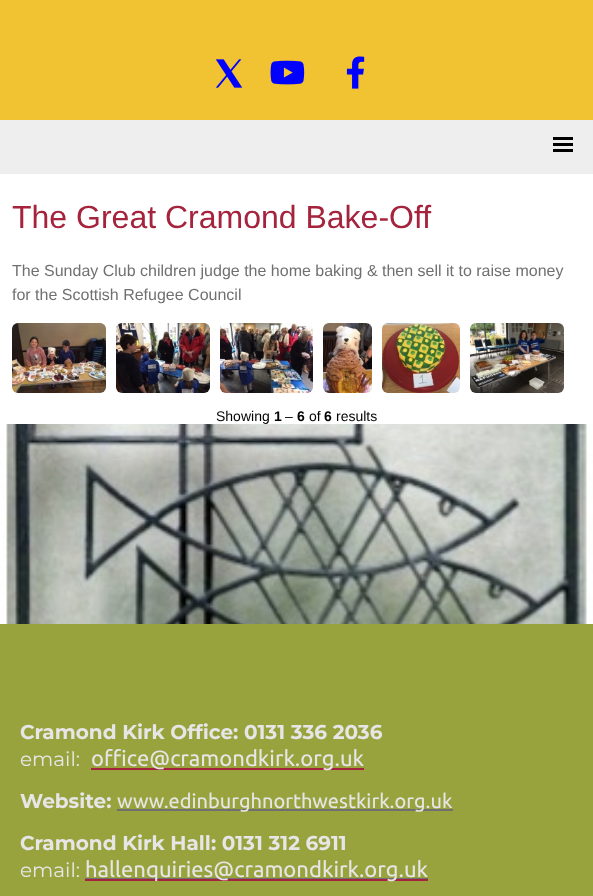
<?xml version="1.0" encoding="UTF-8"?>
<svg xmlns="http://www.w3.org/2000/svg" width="593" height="896">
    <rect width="100%" height="100%" fill="#FFFFFF"/>
    <rect x="0" y="0" width="593" height="120" fill="#F1C232"/>
    <image x="215" y="59" width="28" height="29" href="img_01.png"/>
    <image x="270" y="60" width="35" height="25" href="img_02.png"/>
    <image x="346" y="56" width="19" height="33" href="img_03.png"/>
    <rect x="0" y="120" width="593" height="54" fill="#EEEEEE"/>
    <rect x="553" y="137" width="20" height="3" fill="#000000"/>
    <rect x="553" y="143" width="20" height="3" fill="#000000"/>
    <rect x="553" y="149" width="20" height="3" fill="#000000"/>
    <text x="12" y="228" font-family="Liberation Sans" font-size="32" fill="#A5233C">The Great Cramond Bake-Off</text>
    <text font-family="Liberation Sans" font-size="16" fill="#707070">
        <tspan x="12" y="276">The Sunday Club children judge the home baking &amp; then sell it to raise money</tspan>
        <tspan x="12" y="300">for the Scottish Refugee Council</tspan>
    </text>
    <image x="12" y="323" width="94" height="70" href="img_04.png"/>
    <image x="116" y="323" width="94" height="70" href="img_05.png"/>
    <image x="220" y="323" width="93" height="70" href="img_06.png"/>
    <image x="323" y="323" width="49" height="70" href="img_07.png"/>
    <image x="382" y="323" width="78" height="70" href="img_08.png"/>
    <image x="470" y="323" width="94" height="70" href="img_09.png"/>
    <text x="216" y="421" font-family="Liberation Sans" font-size="14" fill="#000000">Showing</text>
    <text x="274" y="421" font-family="Liberation Sans" font-size="14" font-weight="700" fill="#000000">1</text>
    <text x="285" y="421" font-family="Liberation Sans" font-size="14" fill="#000000">–</text>
    <text x="297" y="421" font-family="Liberation Sans" font-size="14" font-weight="700" fill="#000000">6</text>
    <text x="309" y="421" font-family="Liberation Sans" font-size="14" fill="#000000">of</text>
    <text x="324" y="421" font-family="Liberation Sans" font-size="14" font-weight="700" fill="#000000">6</text>
    <text x="336" y="421" font-family="Liberation Sans" font-size="14" fill="#000000">results</text>
    <image x="0" y="424" width="593" height="200" href="img_10.png"/>
    <rect x="0" y="624" width="593" height="272" fill="#99A33E"/>
    <text x="20" y="739" font-family="Montserrat" font-size="20" font-weight="700" fill="#E6E6E6">Cramond Kirk Office: 0131 336 2036</text>
    <text x="20" y="766" font-family="Montserrat" font-size="20" fill="#E6E6E6">email:</text>
    <rect x="91" y="768" width="273" height="2" fill="#A5233C"/>
    <text x="91" y="766" font-family="Ubuntu" font-size="22" fill="#E6E6E6">office@cramondkirk.org.uk</text>
    <text x="20" y="808" font-family="Montserrat" font-size="20" font-weight="700" fill="#E6E6E6">Website:</text>
    <rect x="117" y="809" width="336" height="2" fill="#707070"/>
    <text x="117" y="808" font-family="Ubuntu" font-size="20" fill="#E6E6E6">www.edinburghnorthwestkirk.org.uk</text>
    <text x="20" y="850" font-family="Montserrat" font-size="20" font-weight="700" fill="#E6E6E6">Cramond Kirk Hall: 0131 312 6911</text>
    <text x="20" y="877" font-family="Montserrat" font-size="20" fill="#E6E6E6">email:</text>
    <rect x="85" y="879" width="343" height="2" fill="#A5233C"/>
    <rect x="85" y="878" width="343" height="1" fill="#707070"/>
    <text x="85" y="877" font-family="Ubuntu" font-size="22" fill="#E6E6E6">hallenquiries@cramondkirk.org.uk</text>
</svg>
